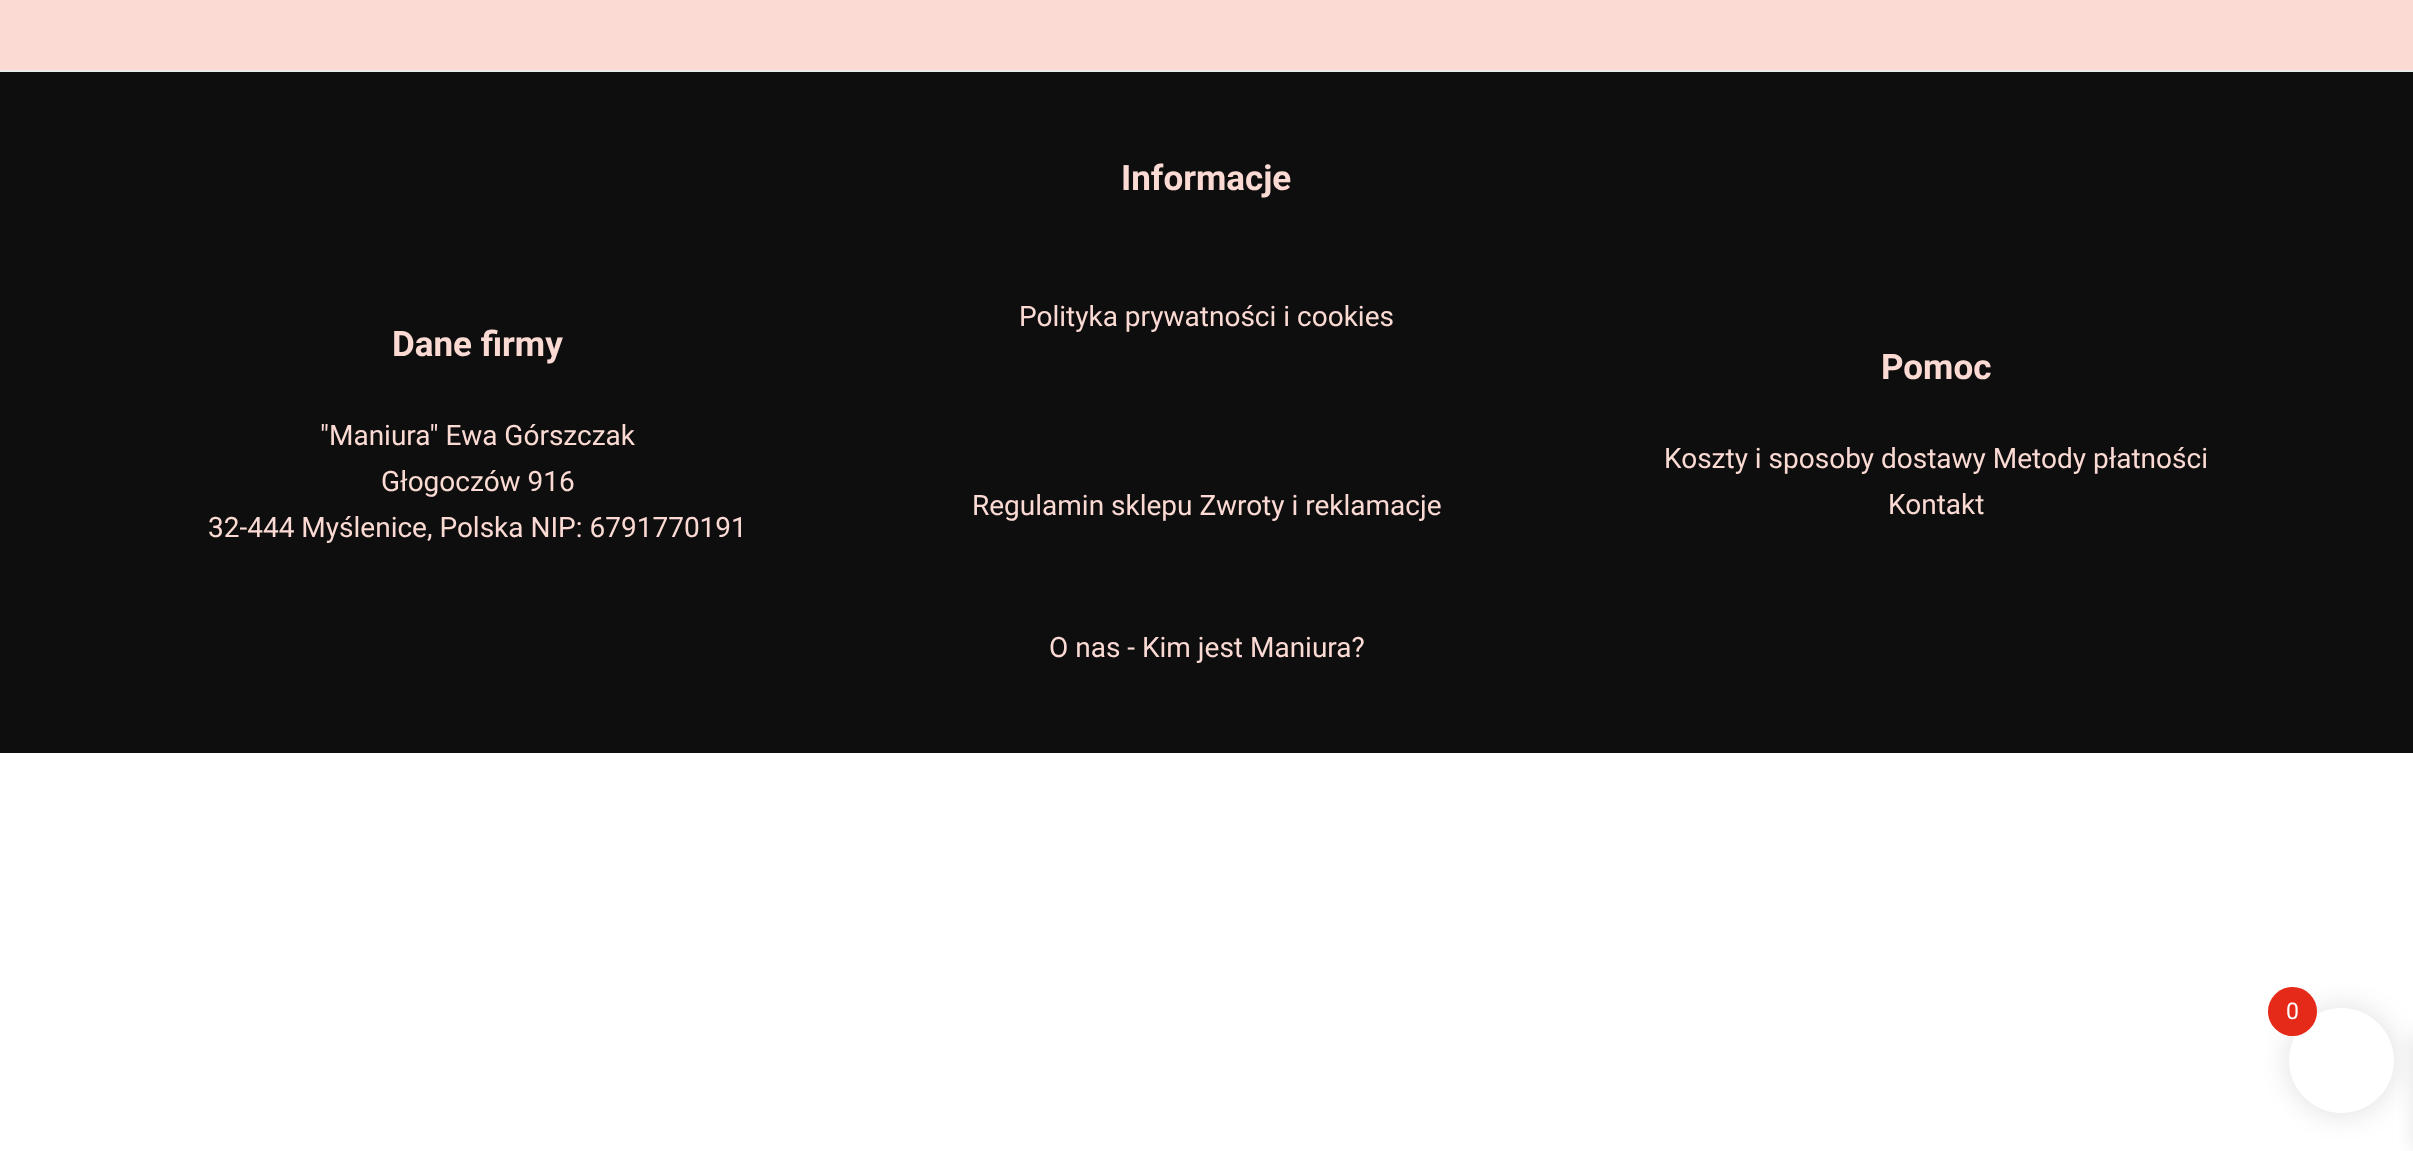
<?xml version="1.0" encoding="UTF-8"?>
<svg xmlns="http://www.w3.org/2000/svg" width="2413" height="1151">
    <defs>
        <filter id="blur1" x="-50%" y="-200%" width="200%" height="500%"><feGaussianBlur stdDeviation="13"/></filter>
        <filter id="blur2" x="-50%" y="-200%" width="200%" height="500%"><feGaussianBlur stdDeviation="9"/></filter>
    </defs>
    <rect width="100%" height="100%" fill="#FFFFFF"/>
    <rect x="0" y="0" width="2413" height="70" fill="#FBDAD4"/>
    <rect x="0" y="72" width="2413" height="681" fill="#0E0E0E"/>
    <rect x="0" y="70" width="2413" height="2" fill="#EAEAEA"/>
    <text x="392" y="356" font-family="Roboto" font-size="35" font-weight="700" fill="#FBDAD4">Dane firmy</text>
    <text x="320" y="445" font-family="Roboto" font-size="28" fill="#FBDAD4">"Maniura" Ewa Górszczak</text>
    <text x="381" y="491" font-family="Roboto" font-size="28" fill="#FBDAD4">Głogoczów 916</text>
    <text x="208" y="537" font-family="Roboto" font-size="28" fill="#FBDAD4">32-444 Myślenice, Polska NIP: 6791770191</text>
    <text x="1121" y="190" font-family="Roboto" font-size="35" font-weight="700" fill="#FBDAD4">Informacje</text>
    <text x="1019" y="326" font-family="Roboto" font-size="28" fill="#FBDAD4">Polityka prywatności i cookies</text>
    <text x="972" y="515" font-family="Roboto" font-size="28" fill="#FBDAD4">Regulamin sklepu Zwroty i reklamacje</text>
    <text x="1049" y="657" font-family="Roboto" font-size="28" fill="#FBDAD4">O nas - Kim jest Maniura?</text>
    <text x="1881" y="379" font-family="Roboto" font-size="35" font-weight="700" fill="#FBDAD4">Pomoc</text>
    <text x="1664" y="468" font-family="Roboto" font-size="28" fill="#FBDAD4">Koszty i sposoby dostawy Metody płatności</text>
    <text x="1888" y="514" font-family="Roboto" font-size="28" fill="#FBDAD4">Kontakt</text>
    <rect x="2286" y="1005" width="112" height="112" rx="56" fill="#000000" fill-opacity="0.1" filter="url(#blur1)"/>
    <rect x="2413" y="1034" width="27" height="116" fill="#000000" fill-opacity="0.1" filter="url(#blur2)"/>
    <circle cx="2341.5" cy="1060.5" r="52.5" fill="#FFFFFF"/>
    <circle cx="2292.5" cy="1011.5" r="24.5" fill="#E52A19"/>
    <text x="2286" y="1019" font-family="Roboto" font-size="23" fill="#FFFFFF">0</text>
</svg>
